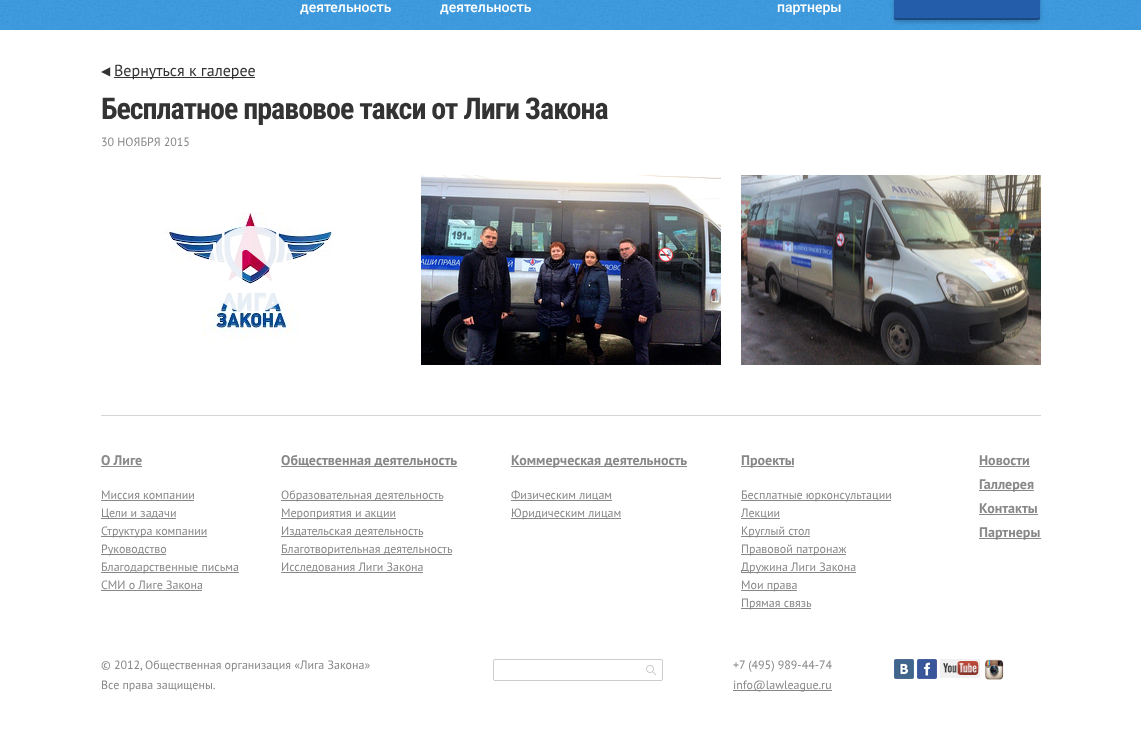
<?xml version="1.0" encoding="UTF-8"?>
<svg xmlns="http://www.w3.org/2000/svg" width="1141" height="737">
    <defs>
        <filter id="blur1" x="-50%" y="-200%" width="200%" height="500%"><feGaussianBlur stdDeviation="2"/></filter>
    </defs>
    <rect width="100%" height="100%" fill="#FFFFFF"/>
    <image x="0" y="0" width="1141" height="30" href="img_01.png"/>
    <text x="300" y="12" font-family="Roboto" font-size="14" font-weight="500" fill="#FFFFFF">деятельность</text>
    <text x="440" y="12" font-family="Roboto" font-size="14" font-weight="500" fill="#FFFFFF">деятельность</text>
    <text x="777" y="12" font-family="Roboto" font-size="14" font-weight="500" fill="#FFFFFF">партнеры</text>
    <rect x="894" y="-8" width="146" height="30" rx="2" fill="#000000" fill-opacity="0.23" filter="url(#blur1)"/>
    <rect x="894" y="-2" width="146" height="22" rx="2" fill="#245EAA"/>
    <path d="M 894 16 C 894 17 894 19 895 20 H 1038 C 1040 20 1040 18 1040 16 C 1040 17 1039 18 1038 18 H 896 C 895 18 894 17 894 16 Z" fill="#000000" fill-opacity="0.23"/>
    <text x="101" y="75" font-family="DejaVu Sans" font-size="12" fill="#333333">◀</text>
    <rect x="114" y="77" width="141" height="1" fill="#333333"/>
    <text x="114" y="76" font-family="PT Sans" font-size="16" fill="#333333">Вернуться к галерее</text>
    <text x="101" y="119" font-family="Roboto Condensed" font-size="30" font-weight="700" letter-spacing="-1" fill="#333333">Бесплатное правовое такси от Лиги Закона</text>
    <text x="101" y="146" font-family="PT Sans" font-size="12" fill="#888888">30 НОЯБРЯ 2015</text>
    <image x="163" y="212" width="172" height="128" href="img_02.png"/>
    <image x="208" y="226" width="86" height="87" href="img_03.png"/>
    <image x="421" y="175" width="300" height="190" href="img_04.png"/>
    <image x="741" y="175" width="300" height="190" href="img_05.png"/>
    <rect x="101" y="415" width="940" height="1" fill="#D5D5D5"/>
    <text x="101" y="465" font-family="PT Sans" font-size="14" font-weight="700" fill="#888888">О Лиге</text>
    <rect x="101" y="466" width="41" height="1" fill="#888888"/>
    <text x="101" y="499" font-family="PT Sans" font-size="12" fill="#888888">Миссия компании</text>
    <rect x="101" y="500" width="93" height="1" fill="#888888"/>
    <rect x="101" y="518" width="75" height="1" fill="#888888"/>
    <text x="101" y="517" font-family="PT Sans" font-size="12" fill="#888888">Цели и задачи</text>
    <rect x="101" y="536" width="106" height="1" fill="#888888"/>
    <text x="101" y="535" font-family="PT Sans" font-size="12" fill="#888888">Структура компании</text>
    <rect x="101" y="554" width="65" height="1" fill="#888888"/>
    <text x="101" y="553" font-family="PT Sans" font-size="12" fill="#888888">Руководство</text>
    <rect x="101" y="572" width="138" height="1" fill="#888888"/>
    <text font-family="PT Sans" font-size="12" fill="#888888">
        <tspan x="101" y="571">Благодарственные письма</tspan>
        <tspan x="101" y="589">СМИ о Лиге Закона</tspan>
    </text>
    <rect x="101" y="590" width="101" height="1" fill="#888888"/>
    <rect x="281" y="466" width="176" height="1" fill="#888888"/>
    <text x="281" y="465" font-family="PT Sans" font-size="14" font-weight="700" fill="#888888">Общественная деятельность</text>
    <rect x="281" y="500" width="162" height="1" fill="#888888"/>
    <text x="281" y="499" font-family="PT Sans" font-size="12" fill="#888888">Образовательная деятельность</text>
    <rect x="281" y="518" width="115" height="1" fill="#888888"/>
    <text x="281" y="517" font-family="PT Sans" font-size="12" fill="#888888">Мероприятия и акции</text>
    <rect x="281" y="536" width="142" height="1" fill="#888888"/>
    <text x="281" y="535" font-family="PT Sans" font-size="12" fill="#888888">Издательская деятельность</text>
    <rect x="281" y="554" width="171" height="1" fill="#888888"/>
    <text x="281" y="553" font-family="PT Sans" font-size="12" fill="#888888">Благотворительная деятельность</text>
    <rect x="281" y="572" width="142" height="1" fill="#888888"/>
    <text x="281" y="571" font-family="PT Sans" font-size="12" fill="#888888">Исследования Лиги Закона</text>
    <rect x="511" y="466" width="176" height="1" fill="#888888"/>
    <text x="511" y="465" font-family="PT Sans" font-size="14" font-weight="700" fill="#888888">Коммерческая деятельность</text>
    <rect x="511" y="500" width="101" height="1" fill="#888888"/>
    <text x="511" y="499" font-family="PT Sans" font-size="12" fill="#888888">Физическим лицам</text>
    <rect x="511" y="518" width="110" height="1" fill="#888888"/>
    <text x="511" y="517" font-family="PT Sans" font-size="12" fill="#888888">Юридическим лицам</text>
    <rect x="741" y="466" width="53" height="1" fill="#888888"/>
    <text x="741" y="465" font-family="PT Sans" font-size="14" font-weight="700" fill="#888888">Проекты</text>
    <rect x="741" y="500" width="150" height="1" fill="#888888"/>
    <text x="741" y="499" font-family="PT Sans" font-size="12" fill="#888888">Бесплатные юрконсультации</text>
    <rect x="741" y="518" width="39" height="1" fill="#888888"/>
    <text x="741" y="517" font-family="PT Sans" font-size="12" fill="#888888">Лекции</text>
    <rect x="741" y="536" width="69" height="1" fill="#888888"/>
    <text x="741" y="535" font-family="PT Sans" font-size="12" fill="#888888">Круглый стол</text>
    <rect x="741" y="554" width="105" height="1" fill="#888888"/>
    <text x="741" y="553" font-family="PT Sans" font-size="12" fill="#888888">Правовой патронаж</text>
    <rect x="741" y="572" width="115" height="1" fill="#888888"/>
    <text x="741" y="571" font-family="PT Sans" font-size="12" fill="#888888">Дружина Лиги Закона</text>
    <rect x="741" y="590" width="56" height="1" fill="#888888"/>
    <text x="741" y="589" font-family="PT Sans" font-size="12" fill="#888888">Мои права</text>
    <rect x="741" y="608" width="70" height="1" fill="#888888"/>
    <text x="741" y="607" font-family="PT Sans" font-size="12" fill="#888888">Прямая связь</text>
    <text x="979" y="465" font-family="PT Sans" font-size="14" font-weight="700" fill="#888888">Новости</text>
    <rect x="979" y="466" width="51" height="1" fill="#888888"/>
    <rect x="979" y="490" width="55" height="1" fill="#888888"/>
    <text font-family="PT Sans" font-size="14" font-weight="700" fill="#888888">
        <tspan x="979" y="489">Галлерея</tspan>
        <tspan x="979" y="513">Контакты</tspan>
    </text>
    <rect x="979" y="514" width="59" height="1" fill="#888888"/>
    <rect x="979" y="538" width="62" height="1" fill="#888888"/>
    <text x="979" y="537" font-family="PT Sans" font-size="14" font-weight="700" fill="#888888">Партнеры</text>
    <text font-family="PT Sans" font-size="12" fill="#888888">
        <tspan x="101" y="669">© 2012, Общественная организация «Лига Закона»</tspan>
        <tspan x="101" y="689">Все права защищены.</tspan>
    </text>
    <rect x="493.5" y="659.5" width="169" height="21" rx="1.5" fill="none" stroke="#CCCCCC"/>
    <image x="646" y="665" width="11" height="11" href="img_06.png"/>
    <text x="733" y="669" font-family="PT Sans" font-size="12" fill="#888888">+7 (495) 989-44-74</text>
    <rect x="733" y="690" width="99" height="1" fill="#888888"/>
    <text x="733" y="689" font-family="PT Sans" font-size="12" fill="#888888">info@lawleague.ru</text>
    <image x="894" y="659" width="20" height="20" href="img_07.png"/>
    <image x="917" y="659" width="20" height="20" href="img_08.png"/>
    <image x="940" y="659" width="40" height="19" href="img_09.png"/>
    <image x="985" y="659" width="19" height="21" href="img_10.png"/>
</svg>
